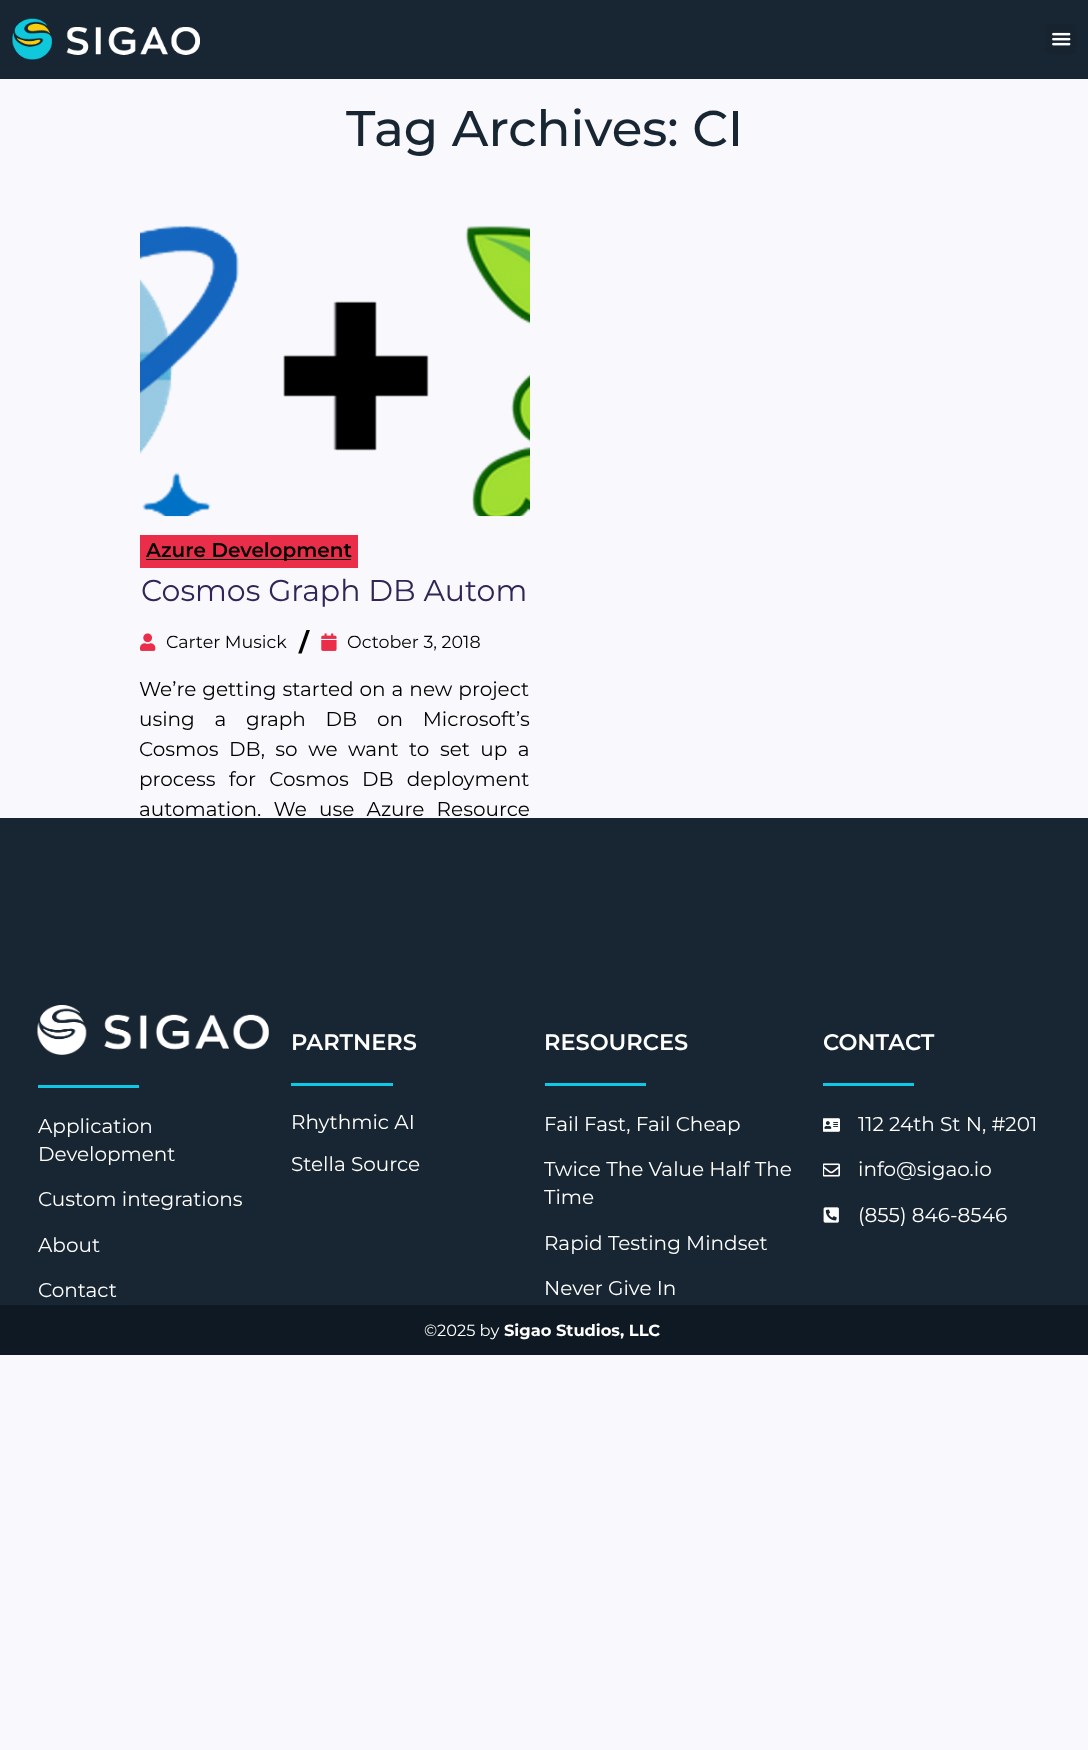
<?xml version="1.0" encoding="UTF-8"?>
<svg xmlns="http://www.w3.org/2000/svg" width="1088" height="1750">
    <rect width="100%" height="100%" fill="#F9F9FD"/>
    <rect x="0" y="0" width="1088" height="79" fill="#182633"/>
    <image x="12" y="18" width="188" height="42" href="img_01.png"/>
    <rect x="1046" y="24" width="30" height="30" rx="4" fill="#172430"/>
    <image x="1052" y="32" width="19" height="14" href="img_02.png"/>
    <text x="346" y="146" font-family="Montserrat" font-size="50" font-weight="500" fill="#182633">Tag Archives: CI</text>
    <image x="140" y="225" width="390" height="292" href="img_03.png"/>
    <rect x="140" y="535" width="218" height="33" fill="#EA2E49"/>
    <rect x="146" y="559" width="205" height="1" fill="#000000"/>
    <text x="146" y="557" font-family="Montserrat" font-size="20" font-weight="600" fill="#000000">Azure Development</text>
    <text x="141" y="601" font-family="Montserrat" font-size="30" fill="#322457">Cosmos Graph DB Autom</text>
    <image x="140" y="633" width="16" height="18" href="img_04.png"/>
    <text x="166" y="648" font-family="Montserrat" font-size="17.5" fill="#000000">Carter Musick</text>
    <text x="299" y="651" font-family="Montserrat" font-size="25" font-weight="700" fill="#000000">/</text>
    <image x="321" y="633" width="16" height="18" href="img_05.png"/>
    <text x="347" y="648" font-family="Montserrat" font-size="17.5" fill="#000000">October 3, 2018</text>
    <text font-family="Montserrat" font-size="20" fill="#000000">
        <tspan x="139" y="696" word-spacing="0.75">We’re getting started on a new project</tspan>
        <tspan x="139" y="726" word-spacing="14.5">using a graph DB on Microsoft’s</tspan>
        <tspan x="139" y="756" word-spacing="5.25">Cosmos DB, so we want to set up a</tspan>
        <tspan x="139" y="786" word-spacing="8">process for Cosmos DB deployment</tspan>
        <tspan x="139" y="816" word-spacing="7">automation. We use Azure Resource</tspan>
    </text>
    <rect x="0" y="818" width="1088" height="487" fill="#182633"/>
    <image x="37" y="1005" width="232" height="50" href="img_06.png"/>
    <rect x="38" y="1085" width="101" height="3" fill="#0FC8E5"/>
    <text font-family="Montserrat" font-size="20" fill="#FFFFFF">
        <tspan x="38" y="1133">Application</tspan>
        <tspan x="38" y="1161">Development</tspan>
    </text>
    <text x="38" y="1206" font-family="Montserrat" font-size="20" fill="#FFFFFF">Custom integrations</text>
    <text x="38" y="1252" font-family="Montserrat" font-size="20" fill="#FFFFFF">About</text>
    <text x="38" y="1297" font-family="Montserrat" font-size="20" fill="#FFFFFF">Contact</text>
    <text x="291" y="1050" font-family="Montserrat" font-size="22.5" font-weight="600" fill="#FFFFFF">PARTNERS</text>
    <rect x="291" y="1083" width="102" height="3" fill="#0FC8E5"/>
    <text x="291" y="1129" font-family="Montserrat" font-size="20" fill="#FFFFFF">Rhythmic AI</text>
    <text x="291" y="1171" font-family="Montserrat" font-size="20" fill="#FFFFFF">Stella Source</text>
    <text x="544" y="1050" font-family="Montserrat" font-size="22.5" font-weight="600" fill="#FFFFFF">RESOURCES</text>
    <rect x="545" y="1083" width="101" height="3" fill="#0FC8E5"/>
    <text x="544" y="1131" font-family="Montserrat" font-size="20" fill="#FFFFFF">Fail Fast, Fail Cheap</text>
    <text font-family="Montserrat" font-size="20" fill="#FFFFFF">
        <tspan x="544" y="1176">Twice The Value Half The</tspan>
        <tspan x="544" y="1204">Time</tspan>
    </text>
    <text x="544" y="1250" font-family="Montserrat" font-size="20" fill="#FFFFFF">Rapid Testing Mindset</text>
    <text x="544" y="1295" font-family="Montserrat" font-size="20" fill="#FFFFFF">Never Give In</text>
    <text x="823" y="1050" font-family="Montserrat" font-size="22.5" font-weight="600" fill="#FFFFFF">CONTACT</text>
    <rect x="823" y="1083" width="91" height="3" fill="#0FC8E5"/>
    <image x="823" y="1118" width="17" height="14" href="img_07.png"/>
    <text x="858" y="1131" font-family="Montserrat" font-size="20" fill="#FFFFFF">112 24th St N, #201</text>
    <image x="823" y="1163" width="17" height="14" href="img_08.png"/>
    <text x="858" y="1176" font-family="Montserrat" font-size="20" fill="#FFFFFF">info@sigao.io</text>
    <image x="823" y="1207" width="16" height="16" href="img_09.png"/>
    <text x="858" y="1222" font-family="Montserrat" font-size="20" fill="#FFFFFF">(855) 846-8546</text>
    <rect x="0" y="1305" width="1088" height="50" fill="#0F1923"/>
    <text x="424" y="1336" font-family="Montserrat" font-size="16.25" fill="#FFFFFF">©2025 by</text>
    <text x="504" y="1336" font-family="Montserrat" font-size="16.25" font-weight="700" fill="#FFFFFF">Sigao Studios, LLC</text>
</svg>
